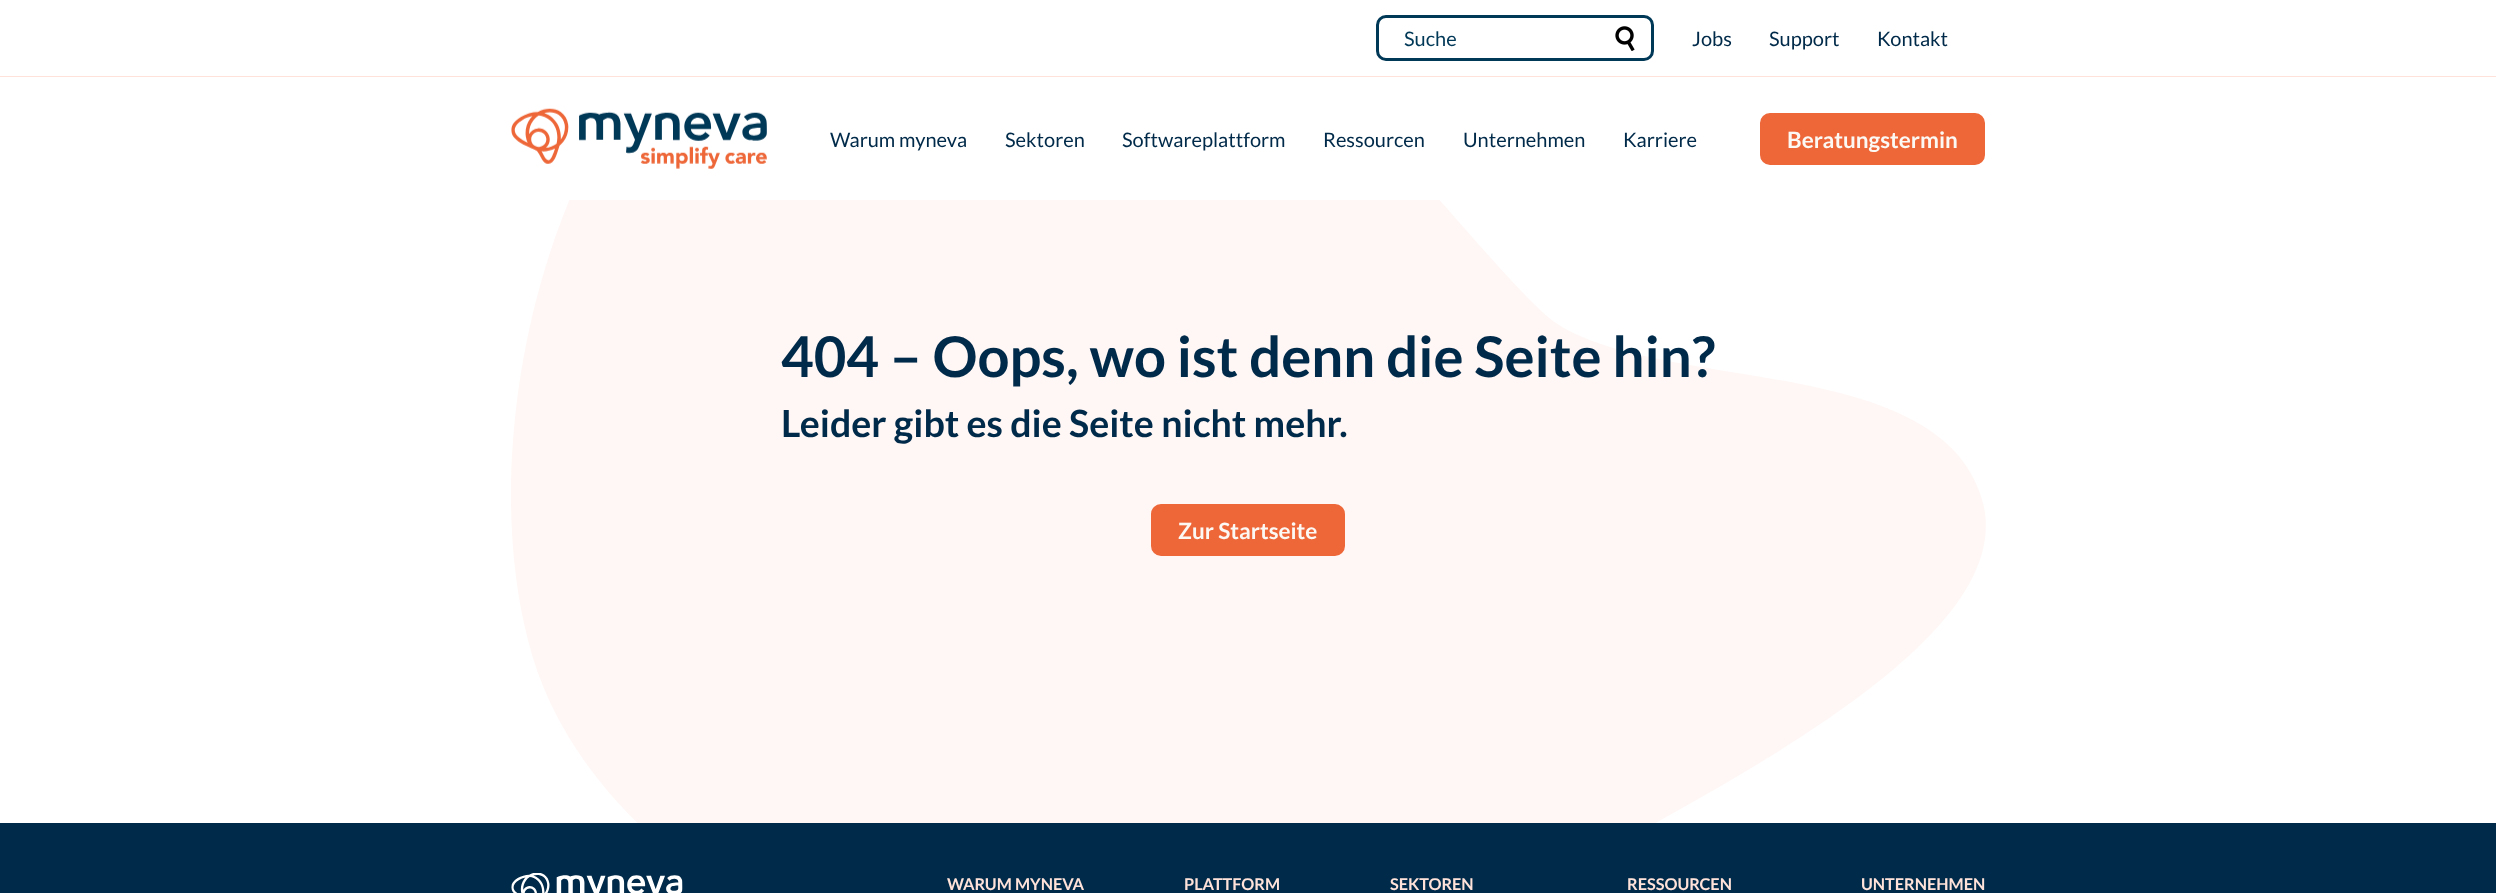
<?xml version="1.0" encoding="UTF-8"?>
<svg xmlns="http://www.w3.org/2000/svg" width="2496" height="893">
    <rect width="100%" height="100%" fill="#FFFFFF"/>
    <path d="M 1983 503 C 1959 409 1838 389 1731 372 C 1665 361 1596 350 1556 323 C 1537 310 1502 271 1466 230 C 1338 84 1122 -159 865 -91 C 733 -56 626 53 563 216 C 510 354 496 516 528 640 C 555 750 641 849 770 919 C 1043 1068 1388 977 1554 880 L 1616 845 C 1784 752 2014 626 1983 503 Z" fill="#FFF7F5"/>
    <rect x="569" y="0" width="870" height="200" fill="#FFFFFF"/>
    <rect x="0" y="76" width="2496" height="1" fill="#FFE3DA"/>
    <rect x="1377.5" y="16.5" width="275" height="43" rx="8.5" fill="none" stroke="#003857" stroke-width="3"/>
    <text x="1404" y="46" font-family="Lato" font-size="20" fill="#003857">Suche</text>
    <image x="1615" y="26" width="20" height="25" href="img_01.png"/>
    <text x="1692" y="46" font-family="Lato" font-size="20" fill="#002A49">Jobs</text>
    <text x="1769" y="46" font-family="Lato" font-size="20" fill="#002A49">Support</text>
    <text x="1877" y="46" font-family="Lato" font-size="20" fill="#002A49">Kontakt</text>
    <image x="511" y="108" width="256" height="61" href="img_02.png"/>
    <text x="830" y="147" font-family="Lato" font-size="20" fill="#002A49">Warum myneva</text>
    <text x="1005" y="147" font-family="Lato" font-size="20" fill="#002A49">Sektoren</text>
    <text x="1122" y="147" font-family="Lato" font-size="20" fill="#002A49">Softwareplattform</text>
    <text x="1323" y="147" font-family="Lato" font-size="20" fill="#002A49">Ressourcen</text>
    <text x="1463" y="147" font-family="Lato" font-size="20" fill="#002A49">Unternehmen</text>
    <text x="1623" y="147" font-family="Lato" font-size="20" fill="#002A49">Karriere</text>
    <rect x="1761.5" y="114.5" width="222" height="49" rx="8.5" fill="#ED6739" stroke="#ED6739" stroke-width="3"/>
    <text x="1787" y="148" font-family="Lato" font-size="22.5" font-weight="700" fill="#FCF8F4">Beratungstermin</text>
    <text x="781" y="377" font-family="Lato" font-size="56.25" font-weight="700" fill="#002A49">404 – Oops, wo ist denn die Seite hin?</text>
    <text x="781" y="437" font-family="Lato" font-size="37.5" font-weight="700" fill="#002A49">Leider gibt es die Seite nicht mehr.</text>
    <rect x="1152.5" y="505.5" width="191" height="49" rx="8.5" fill="#ED6739" stroke="#ED6739" stroke-width="3"/>
    <text x="1178" y="539" font-family="Lato" font-size="22.5" font-weight="700" fill="#FCF8F4">Zur Startseite</text>
    <rect x="0" y="823" width="2496" height="70" fill="#002A49"/>
    <image x="511" y="873" width="172" height="20" href="img_03.png"/>
    <text x="947" y="890" font-family="Lato" font-size="16.25" font-weight="700" fill="#FFE3DA">WARUM MYNEVA</text>
    <text x="1184" y="890" font-family="Lato" font-size="16.25" font-weight="700" fill="#FFE3DA">PLATTFORM</text>
    <text x="1390" y="890" font-family="Lato" font-size="16.25" font-weight="700" fill="#FFE3DA">SEKTOREN</text>
    <text x="1627" y="890" font-family="Lato" font-size="16.25" font-weight="700" fill="#FFE3DA">RESSOURCEN</text>
    <text x="1861" y="890" font-family="Lato" font-size="16.25" font-weight="700" fill="#FFE3DA">UNTERNEHMEN</text>
</svg>
